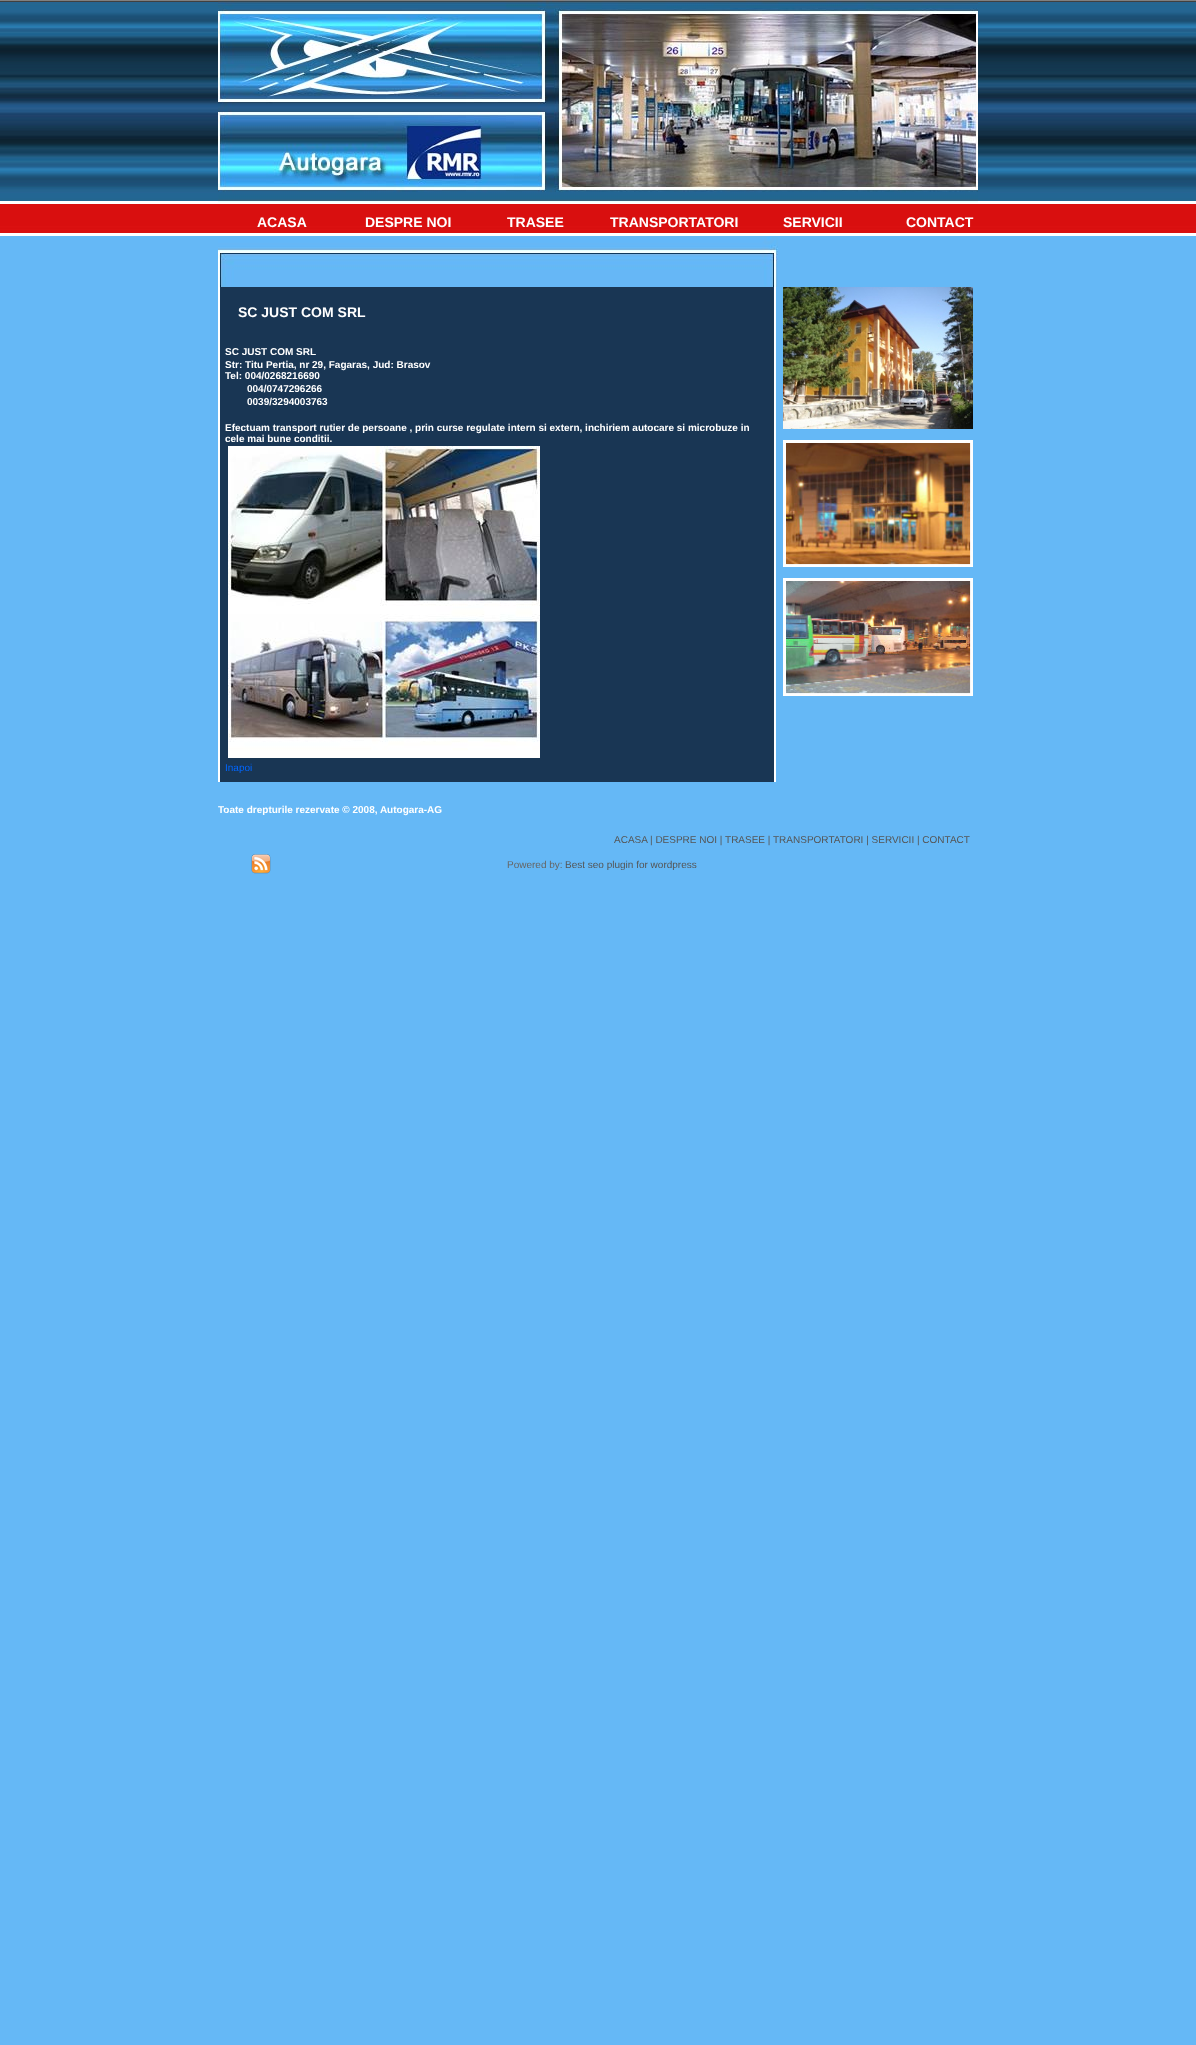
<?xml version="1.0" encoding="UTF-8"?>
<svg xmlns="http://www.w3.org/2000/svg" width="1196" height="2045">
    <rect width="100%" height="100%" fill="#65B8F6"/>
    <image x="0" y="0" width="1196" height="236" href="img_01.png"/>
    <image x="218" y="0" width="760" height="203" href="img_02.png"/>
    <text x="257" y="227" font-family="Liberation Sans" font-size="14" font-weight="700" fill="#FFFFFF">ACASA</text>
    <text x="365" y="227" font-family="Liberation Sans" font-size="14" font-weight="700" fill="#FFFFFF">DESPRE NOI</text>
    <text x="507" y="227" font-family="Liberation Sans" font-size="14" font-weight="700" fill="#FFFFFF">TRASEE</text>
    <text x="610" y="227" font-family="Liberation Sans" font-size="14" font-weight="700" fill="#FFFFFF">TRANSPORTATORI</text>
    <text x="783" y="227" font-family="Liberation Sans" font-size="14" font-weight="700" fill="#FFFFFF">SERVICII</text>
    <text x="906" y="227" font-family="Liberation Sans" font-size="14" font-weight="700" fill="#FFFFFF">CONTACT</text>
    <image x="218" y="237" width="560" height="50" href="img_03.png"/>
    <image x="218" y="287" width="558" height="495" href="img_04.png"/>
    <text x="238" y="317" font-family="Liberation Sans" font-size="14" font-weight="700" fill="#FFFFFF">SC JUST COM SRL</text>
    <text font-family="Liberation Sans" font-size="10" font-weight="700" fill="#FFFFFF">
        <tspan x="225" y="355">SC JUST COM SRL</tspan>
        <tspan x="225" y="368">Str: Titu Pertia, nr 29, Fagaras, Jud: Brasov</tspan>
        <tspan x="225" y="379">Tel: 004/0268216690</tspan>
    </text>
    <text font-family="Liberation Sans" font-size="10" font-weight="700" fill="#FFFFFF">
        <tspan x="247" y="392">004/0747296266</tspan>
        <tspan x="247" y="405">0039/3294003763</tspan>
    </text>
    <text font-family="Liberation Sans" font-size="10" font-weight="700" fill="#FFFFFF">
        <tspan x="225" y="431">Efectuam transport rutier de persoane , prin curse regulate intern si extern, inchiriem autocare si microbuze in</tspan>
        <tspan x="225" y="442">cele mai bune conditii.</tspan>
    </text>
    <image x="228" y="446" width="312" height="312" href="img_05.png"/>
    <text x="225" y="771" font-family="Liberation Sans" font-size="10" fill="#0066FF">Inapoi</text>
    <image x="783" y="287" width="190" height="142" href="img_06.png"/>
    <image x="783" y="440" width="190" height="127" href="img_07.png"/>
    <image x="783" y="578" width="190" height="118" href="img_08.png"/>
    <text x="218" y="813" font-family="Liberation Sans" font-size="10" font-weight="700" fill="#FFFFFF">Toate drepturile rezervate © 2008, Autogara-AG</text>
    <text x="614" y="843" font-family="Liberation Sans" font-size="10" fill="#555555">ACASA</text>
    <text x="650" y="843" font-family="Liberation Sans" font-size="10" fill="#555555">| DESPRE NOI | TRASEE | TRANSPORTATORI | SERVICII | CONTACT</text>
    <image x="251" y="854" width="20" height="20" href="img_09.png"/>
    <text x="507" y="868" font-family="Liberation Sans" font-size="10" fill="#666666">Powered by:</text>
    <text x="565" y="868" font-family="Liberation Sans" font-size="10" fill="#555555">Best seo plugin for wordpress</text>
</svg>
